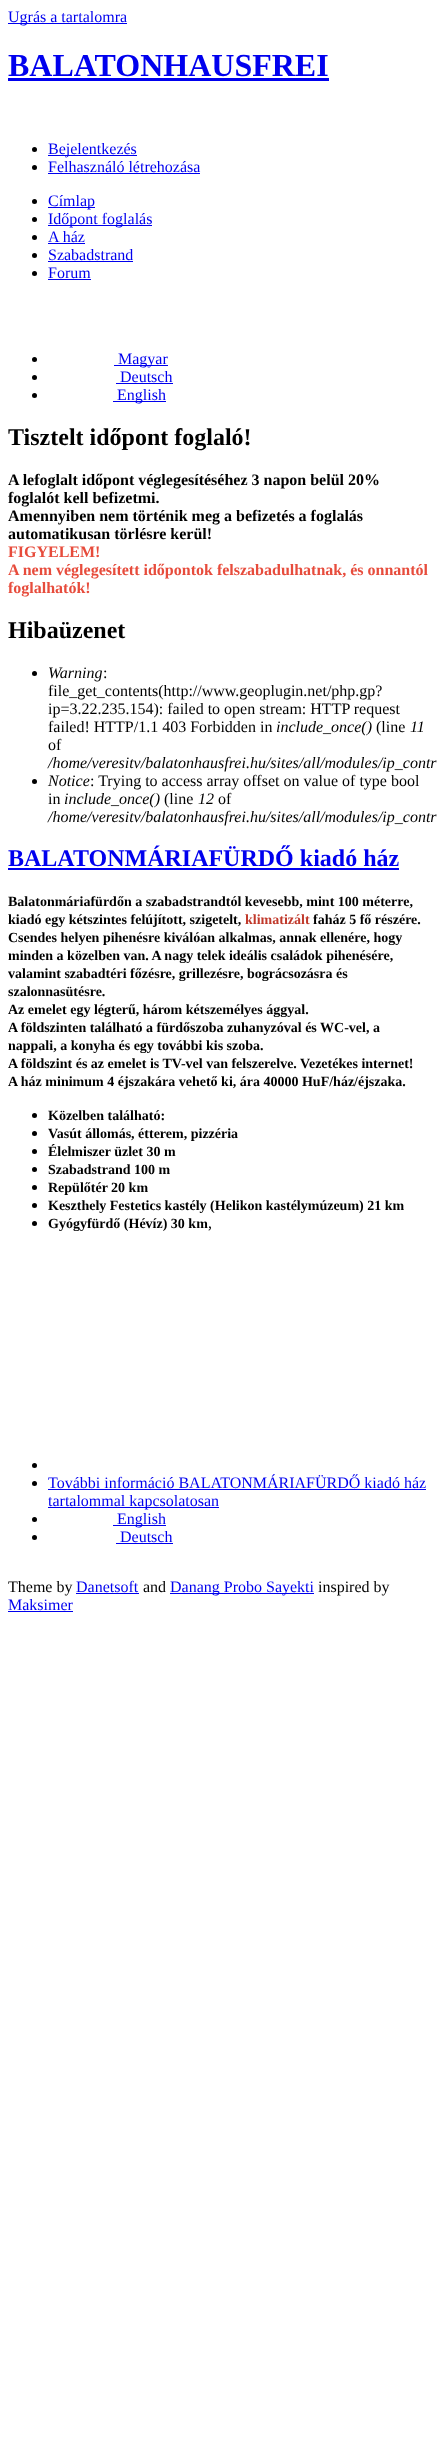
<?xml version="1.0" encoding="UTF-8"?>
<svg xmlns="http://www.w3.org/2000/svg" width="438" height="2451">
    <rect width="100%" height="100%" fill="#FFFFFF"/>
    <rect x="8" y="23" width="119" height="1" fill="#0000EE"/>
    <text x="8" y="22" font-family="Liberation Serif" font-size="16" fill="#0000EE">Ugrás a tartalomra</text>
    <text x="8" y="76" font-family="Liberation Serif" font-size="32" font-weight="700" fill="#0000EE">BALATONHAUSFREI</text>
    <rect x="8" y="78" width="321" height="3" fill="#0000EE"/>
    <circle cx="34.5" cy="149.5" r="2.5" fill="#000000"/>
    <rect x="48" y="155" width="89" height="1" fill="#0000EE"/>
    <text x="48" y="154" font-family="Liberation Serif" font-size="16" fill="#0000EE">Bejelentkezés</text>
    <circle cx="34.5" cy="167.5" r="2.5" fill="#000000"/>
    <text x="48" y="172" font-family="Liberation Serif" font-size="16" fill="#0000EE">Felhasználó létrehozása</text>
    <rect x="48" y="173" width="152" height="1" fill="#0000EE"/>
    <circle cx="34.5" cy="201.5" r="2.5" fill="#000000"/>
    <rect x="48" y="207" width="47" height="1" fill="#0000EE"/>
    <text x="48" y="206" font-family="Liberation Serif" font-size="16" fill="#0000EE">Címlap</text>
    <circle cx="34.5" cy="219.5" r="2.5" fill="#000000"/>
    <rect x="48" y="225" width="104" height="1" fill="#0000EE"/>
    <text x="48" y="224" font-family="Liberation Serif" font-size="16" fill="#0000EE">Időpont foglalás</text>
    <circle cx="34.5" cy="237.5" r="2.5" fill="#000000"/>
    <text x="48" y="242" font-family="Liberation Serif" font-size="16" fill="#0000EE">A ház</text>
    <rect x="48" y="243" width="37" height="1" fill="#0000EE"/>
    <circle cx="34.5" cy="255.5" r="2.5" fill="#000000"/>
    <text x="48" y="260" font-family="Liberation Serif" font-size="16" fill="#0000EE">Szabadstrand</text>
    <rect x="48" y="261" width="85" height="1" fill="#0000EE"/>
    <circle cx="34.5" cy="273.5" r="2.5" fill="#000000"/>
    <text x="48" y="278" font-family="Liberation Serif" font-size="16" fill="#0000EE">Forum</text>
    <rect x="48" y="279" width="43" height="1" fill="#0000EE"/>
    <circle cx="34.5" cy="359.5" r="2.5" fill="#000000"/>
    <rect x="114" y="365" width="54" height="1" fill="#0000EE"/>
    <text x="118" y="364" font-family="Liberation Serif" font-size="16" fill="#0000EE">Magyar</text>
    <circle cx="34.5" cy="377.5" r="2.5" fill="#000000"/>
    <text x="120" y="382" font-family="Liberation Serif" font-size="16" fill="#0000EE">Deutsch</text>
    <rect x="116" y="383" width="57" height="1" fill="#0000EE"/>
    <circle cx="34.5" cy="395.5" r="2.5" fill="#000000"/>
    <rect x="113" y="401" width="53" height="1" fill="#0000EE"/>
    <text x="117" y="400" font-family="Liberation Serif" font-size="16" fill="#0000EE">English</text>
    <text x="8" y="445" font-family="Liberation Serif" font-size="24" font-weight="700" fill="#000000">Tisztelt időpont foglaló!</text>
    <text font-family="Liberation Serif" font-size="16" font-weight="700" fill="#000000">
        <tspan x="8" y="485">A lefoglalt időpont véglegesítéséhez 3 napon belül 20%</tspan>
        <tspan x="8" y="503">foglalót kell befizetmi.</tspan>
        <tspan x="8" y="521">Amennyiben nem történik meg a befizetés a foglalás</tspan>
        <tspan x="8" y="539">automatikusan törlésre kerül!</tspan>
    </text>
    <text font-family="Liberation Serif" font-size="16" font-weight="700" fill="#E74C3C">
        <tspan x="8" y="557">FIGYELEM!</tspan>
        <tspan x="8" y="575">A nem véglegesített időpontok felszabadulhatnak, és onnantól</tspan>
        <tspan x="8" y="593">foglalhatók!</tspan>
    </text>
    <text x="8" y="638" font-family="Liberation Serif" font-size="24" font-weight="700" fill="#000000">Hibaüzenet</text>
    <circle cx="34.5" cy="673.5" r="2.5" fill="#000000"/>
    <text x="48" y="678" font-family="Liberation Serif" font-size="16" font-style="italic" fill="#000000">Warning</text>
    <text x="103" y="678" font-family="Liberation Serif" font-size="16" fill="#000000">:</text>
    <text font-family="Liberation Serif" font-size="16" fill="#000000">
        <tspan x="48" y="696">file_get_contents(http://www.geoplugin.net/php.gp?</tspan>
        <tspan x="48" y="714">ip=3.22.235.154): failed to open stream: HTTP request</tspan>
        <tspan x="48" y="732">failed! HTTP/1.1 403 Forbidden in</tspan>
    </text>
    <text x="276" y="732" font-family="Liberation Serif" font-size="16" font-style="italic" fill="#000000">include_once()</text>
    <text x="376" y="732" font-family="Liberation Serif" font-size="16" fill="#000000">(line</text>
    <text x="410" y="732" font-family="Liberation Serif" font-size="16" font-style="italic" fill="#000000">11</text>
    <text x="48" y="750" font-family="Liberation Serif" font-size="16" fill="#000000">of</text>
    <text x="48" y="768" font-family="Liberation Serif" font-size="16" font-style="italic" fill="#000000">/home/veresitv/balatonhausfrei.hu/sites/all/modules/ip_contr</text>
    <circle cx="34.5" cy="781.5" r="2.5" fill="#000000"/>
    <text x="48" y="786" font-family="Liberation Serif" font-size="16" font-style="italic" fill="#000000">Notice</text>
    <text x="90" y="786" font-family="Liberation Serif" font-size="16" fill="#000000">: Trying to access array offset on value of type bool</text>
    <text x="48" y="804" font-family="Liberation Serif" font-size="16" fill="#000000">in</text>
    <text x="64" y="804" font-family="Liberation Serif" font-size="16" font-style="italic" fill="#000000">include_once()</text>
    <text x="164" y="804" font-family="Liberation Serif" font-size="16" fill="#000000">(line</text>
    <text x="198" y="804" font-family="Liberation Serif" font-size="16" font-style="italic" fill="#000000">12</text>
    <text x="218" y="804" font-family="Liberation Serif" font-size="16" fill="#000000">of</text>
    <text x="48" y="822" font-family="Liberation Serif" font-size="16" font-style="italic" fill="#000000">/home/veresitv/balatonhausfrei.hu/sites/all/modules/ip_contr</text>
    <text x="8" y="866" font-family="Liberation Serif" font-size="24" font-weight="700" fill="#0000EE">BALATONMÁRIAFÜRDŐ kiadó ház</text>
    <rect x="8" y="868" width="391" height="2" fill="#0000EE"/>
    <text font-family="Liberation Serif" font-size="14" font-weight="700" fill="#000000">
        <tspan x="8" y="906">Balatonmáriafürdőn a szabadstrandtól kevesebb, mint 100 méterre,</tspan>
        <tspan x="8" y="924">kiadó egy kétszintes felújított, szigetelt,</tspan>
    </text>
    <text x="245" y="924" font-family="Liberation Serif" font-size="14" font-weight="700" fill="#C0392B">klimatizált</text>
    <text x="313" y="924" font-family="Liberation Serif" font-size="14" font-weight="700" fill="#000000">faház 5 fő részére.</text>
    <text font-family="Liberation Serif" font-size="14" font-weight="700" fill="#000000">
        <tspan x="8" y="942">Csendes helyen pihenésre kiválóan alkalmas, annak ellenére, hogy</tspan>
        <tspan x="8" y="960">minden a közelben van. A nagy telek ideális családok pihenésére,</tspan>
        <tspan x="8" y="978">valamint szabadtéri főzésre, grillezésre, bográcsozásra és</tspan>
        <tspan x="8" y="996">szalonnasütésre.</tspan>
        <tspan x="8" y="1014">Az emelet egy légterű, három kétszemélyes ággyal.</tspan>
        <tspan x="8" y="1032">A földszinten található a fürdőszoba zuhanyzóval és WC-vel, a</tspan>
        <tspan x="8" y="1050">nappali, a konyha és egy további kis szoba.</tspan>
        <tspan x="8" y="1068">A földszint és az emelet is TV-vel van felszerelve. Vezetékes internet!</tspan>
        <tspan x="8" y="1086">A ház minimum 4 éjszakára vehető ki, ára 40000 HuF/ház/éjszaka.</tspan>
    </text>
    <circle cx="34.5" cy="1115.5" r="2.5" fill="#000000"/>
    <text x="48" y="1120" font-family="Liberation Serif" font-size="14" font-weight="700" fill="#000000">Közelben található:</text>
    <circle cx="34.5" cy="1133.5" r="2.5" fill="#000000"/>
    <text x="48" y="1138" font-family="Liberation Serif" font-size="14" font-weight="700" fill="#000000">Vasút állomás, étterem, pizzéria</text>
    <circle cx="34.5" cy="1151.5" r="2.5" fill="#000000"/>
    <text x="48" y="1156" font-family="Liberation Serif" font-size="14" font-weight="700" fill="#000000">Élelmiszer üzlet 30 m</text>
    <circle cx="34.5" cy="1169.5" r="2.5" fill="#000000"/>
    <text x="48" y="1174" font-family="Liberation Serif" font-size="14" font-weight="700" fill="#000000">Szabadstrand 100 m</text>
    <circle cx="34.5" cy="1187.5" r="2.5" fill="#000000"/>
    <text x="48" y="1192" font-family="Liberation Serif" font-size="14" font-weight="700" fill="#000000">Repülőtér 20 km</text>
    <circle cx="34.5" cy="1205.5" r="2.5" fill="#000000"/>
    <text x="48" y="1210" font-family="Liberation Serif" font-size="14" font-weight="700" fill="#000000">Keszthely Festetics kastély (Helikon kastélymúzeum) 21 km</text>
    <circle cx="34.5" cy="1223.5" r="2.5" fill="#000000"/>
    <text x="48" y="1228" font-family="Liberation Serif" font-size="14" font-weight="700" fill="#000000">Gyógyfürdő (Hévíz) 30 km</text>
    <text x="208" y="1228" font-family="Liberation Serif" font-size="16" fill="#000000">,</text>
    <circle cx="34.5" cy="1465.5" r="2.5" fill="#000000"/>
    <circle cx="34.5" cy="1483.5" r="2.5" fill="#000000"/>
    <text x="48" y="1488" font-family="Liberation Serif" font-size="16" fill="#0000EE">További információ BALATONMÁRIAFÜRDŐ kiadó ház</text>
    <rect x="48" y="1489" width="378" height="1" fill="#0000EE"/>
    <rect x="48" y="1507" width="171" height="1" fill="#0000EE"/>
    <text x="48" y="1506" font-family="Liberation Serif" font-size="16" fill="#0000EE">tartalommal kapcsolatosan</text>
    <circle cx="34.5" cy="1519.5" r="2.5" fill="#000000"/>
    <rect x="113" y="1525" width="53" height="1" fill="#0000EE"/>
    <text x="117" y="1524" font-family="Liberation Serif" font-size="16" fill="#0000EE">English</text>
    <circle cx="34.5" cy="1537.5" r="2.5" fill="#000000"/>
    <text x="120" y="1542" font-family="Liberation Serif" font-size="16" fill="#0000EE">Deutsch</text>
    <rect x="116" y="1543" width="57" height="1" fill="#0000EE"/>
    <text x="8" y="1592" font-family="Liberation Serif" font-size="16" fill="#000000">Theme by</text>
    <text x="76" y="1592" font-family="Liberation Serif" font-size="16" fill="#0000EE">Danetsoft</text>
    <rect x="76" y="1593" width="63" height="1" fill="#0000EE"/>
    <text x="143" y="1592" font-family="Liberation Serif" font-size="16" fill="#000000">and</text>
    <rect x="170" y="1593" width="144" height="1" fill="#0000EE"/>
    <text x="170" y="1592" font-family="Liberation Serif" font-size="16" fill="#0000EE">Danang Probo Sayekti</text>
    <text x="318" y="1592" font-family="Liberation Serif" font-size="16" fill="#000000">inspired by</text>
    <text x="8" y="1610" font-family="Liberation Serif" font-size="16" fill="#0000EE">Maksimer</text>
    <rect x="8" y="1611" width="65" height="1" fill="#0000EE"/>
</svg>
